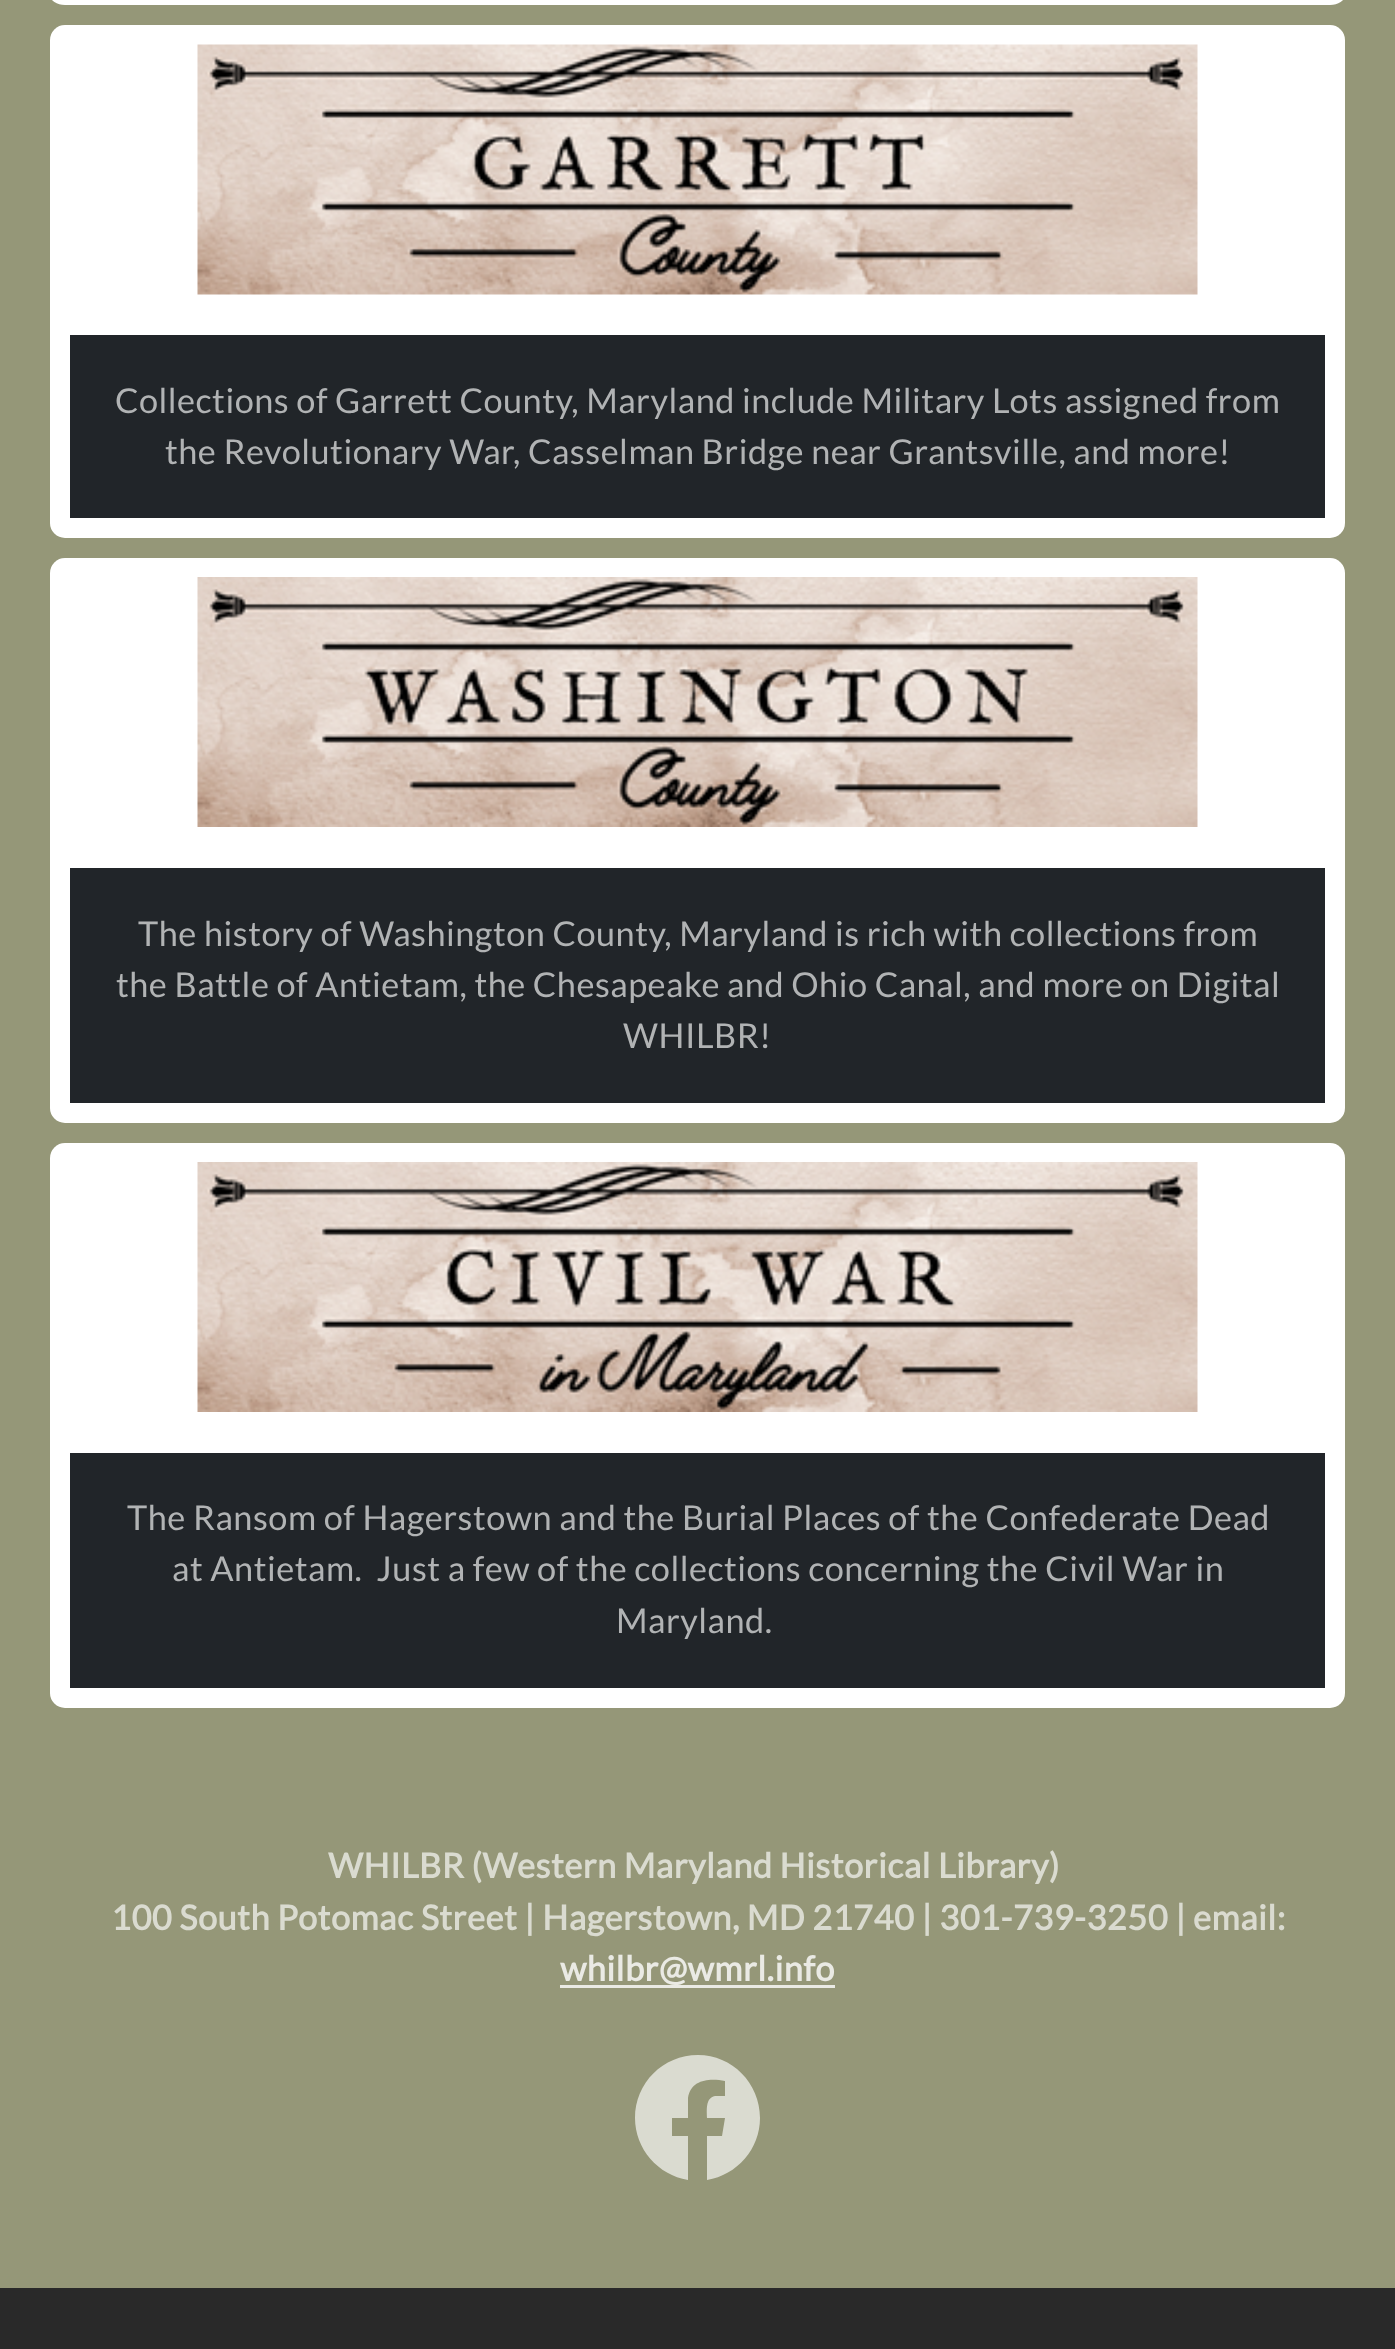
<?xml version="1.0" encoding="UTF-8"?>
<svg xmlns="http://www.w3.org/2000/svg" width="1395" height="2349">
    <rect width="100%" height="100%" fill="#292929"/>
    <rect x="0" y="0" width="1395" height="2288" fill="#959778"/>
    <rect x="50" y="-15" width="1295" height="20" rx="15" fill="#FFFFFF"/>
    <rect x="50" y="25" width="1295" height="513" rx="15" fill="#FFFFFF"/>
    <image x="197" y="44" width="1001" height="251" href="img_01.png"/>
    <rect x="70" y="335" width="1255" height="183" fill="#212529"/>
    <text x="115" y="413" font-family="Lato" font-size="34.3" letter-spacing="0.5" fill="#B1B3B4">Collections of Garrett County, Maryland include Military Lots assigned from</text>
    <text x="165" y="464" font-family="Lato" font-size="34.3" letter-spacing="0.5" fill="#B1B3B4">the Revolutionary War, Casselman Bridge near Grantsville, and more!</text>
    <rect x="50" y="558" width="1295" height="565" rx="15" fill="#FFFFFF"/>
    <image x="197" y="577" width="1001" height="250" href="img_02.png"/>
    <rect x="70" y="868" width="1255" height="235" fill="#212529"/>
    <text x="138" y="946" font-family="Lato" font-size="34.3" letter-spacing="0.5" fill="#B1B3B4">The history of Washington County, Maryland is rich with collections from</text>
    <text x="116" y="997" font-family="Lato" font-size="34.3" letter-spacing="0.5" fill="#B1B3B4">the Battle of Antietam, the Chesapeake and Ohio Canal, and more on Digital</text>
    <text x="623" y="1048" font-family="Lato" font-size="34.3" letter-spacing="0.5" fill="#B1B3B4">WHILBR!</text>
    <rect x="50" y="1143" width="1295" height="565" rx="15" fill="#FFFFFF"/>
    <image x="197" y="1162" width="1001" height="250" href="img_03.png"/>
    <rect x="70" y="1453" width="1255" height="235" fill="#212529"/>
    <text x="127" y="1530" font-family="Lato" font-size="34.3" letter-spacing="0.5" fill="#B1B3B4">The Ransom of Hagerstown and the Burial Places of the Confederate Dead</text>
    <text x="172" y="1581" font-family="Lato" font-size="34.3" letter-spacing="0.5" fill="#B1B3B4" xml:space="preserve">at Antietam.  Just a few of the collections concerning the Civil War in</text>
    <text x="616" y="1633" font-family="Lato" font-size="34.3" letter-spacing="0.5" fill="#B1B3B4">Maryland.</text>
    <text x="328" y="1878" font-family="Lato" font-size="34.3" font-weight="700" letter-spacing="0.5" fill="#DADBD0">WHILBR (Western Maryland Historical Library)</text>
    <text x="111" y="1930" font-family="Lato" font-size="34.3" font-weight="700" letter-spacing="0.5" fill="#DADBD0">100 South Potomac Street | Hagerstown, MD 21740 | 301-739-3250 | email:</text>
    <rect x="560" y="1985" width="275" height="3" fill="#EAEAE4"/>
    <text x="560" y="1981" font-family="Lato" font-size="34.3" font-weight="700" letter-spacing="0.5" fill="#EAEAE4">whilbr@wmrl.info</text>
    <path d="M 760 2118 C 760 2083 732 2055 698 2055 C 663 2055 635 2083 635 2118 C 635 2149 658 2175 688 2180 V 2136 H 672 V 2118 H 688 V 2098 C 691 2079 710 2078 725 2081 V 2096 H 715 C 705 2098 707 2111 707 2118 H 725 L 722 2136 H 707 V 2180 C 737 2175 760 2149 760 2118 Z" fill="#DADBD0"/>
</svg>
